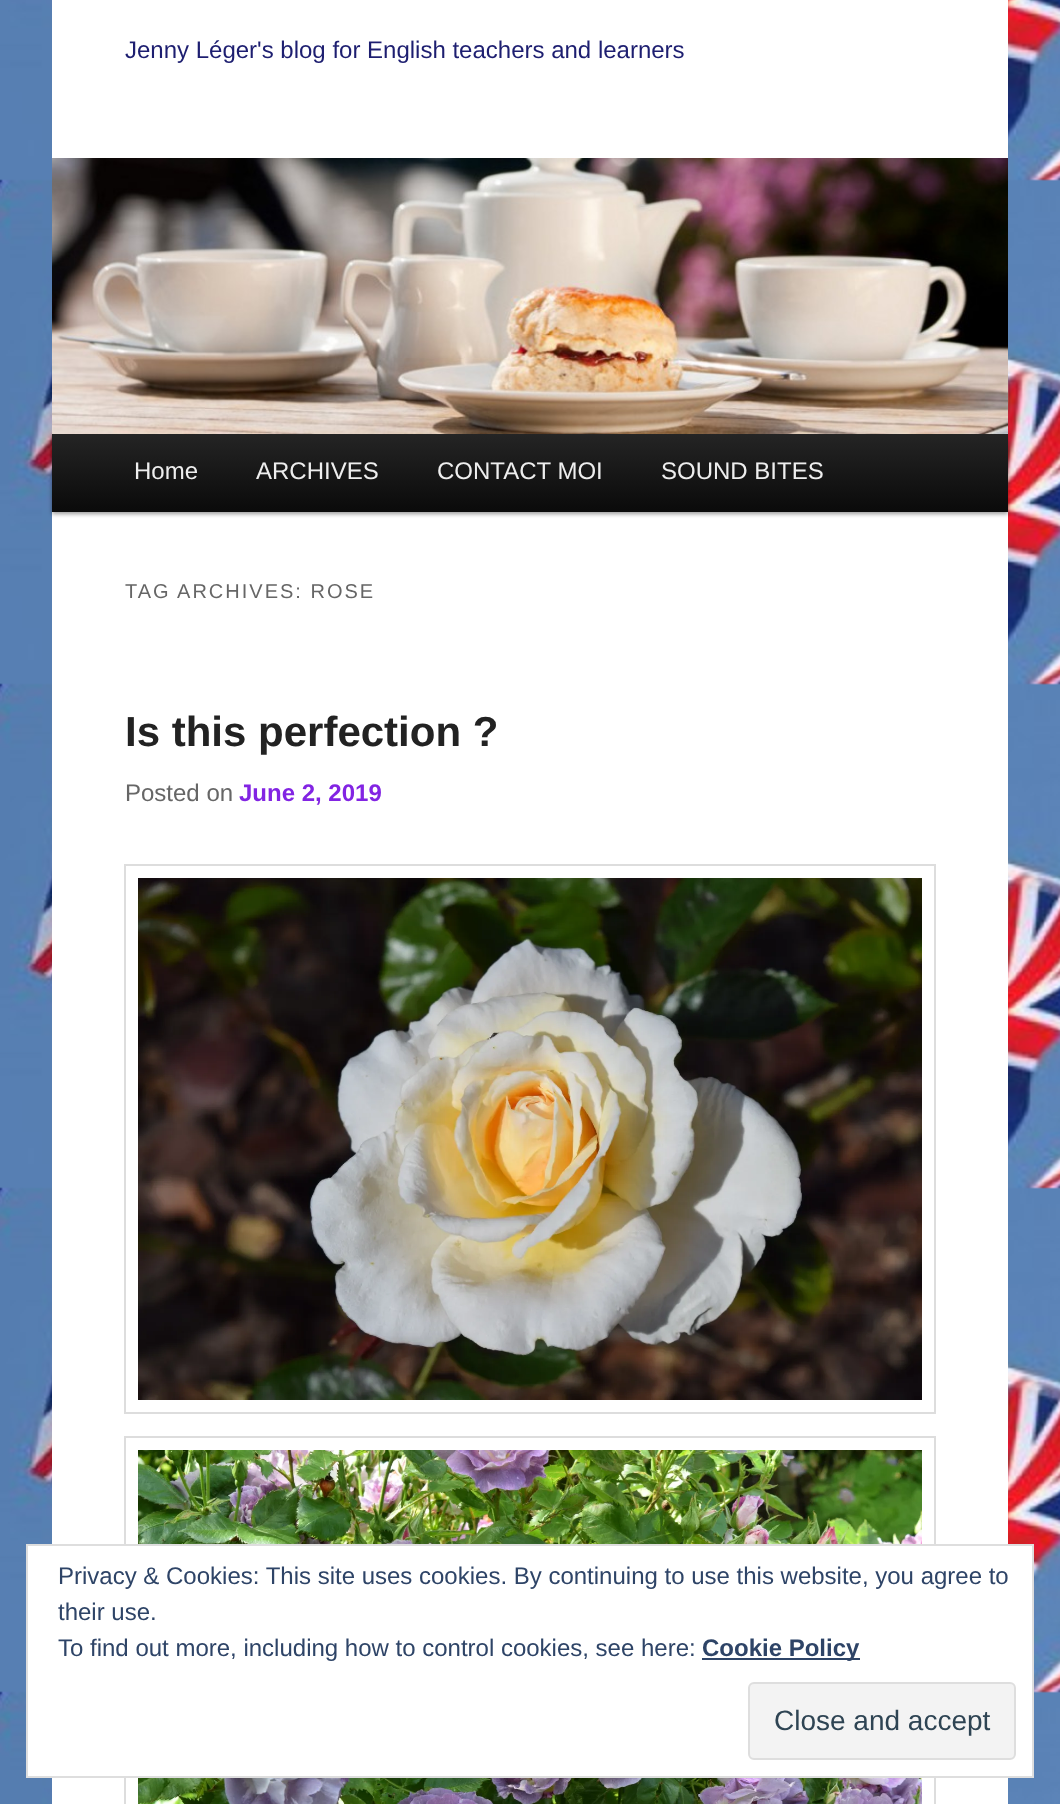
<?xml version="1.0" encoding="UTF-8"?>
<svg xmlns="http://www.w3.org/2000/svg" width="1060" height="1804">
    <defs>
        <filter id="blur1" x="-50%" y="-200%" width="200%" height="500%"><feGaussianBlur stdDeviation="2"/></filter>
        <linearGradient id="g1" gradientUnits="userSpaceOnUse" x1="530" y1="432" x2="530" y2="512"><stop offset="0" stop-color="#252525"/><stop offset="1" stop-color="#0A0A0A"/></linearGradient>
    </defs>
    <rect width="100%" height="100%" fill="#FFFFFF"/>
    <image x="0" y="0" width="1060" height="1804" href="img_01.png"/>
    <rect x="52" y="0" width="956" height="1804" fill="#FFFFFF"/>
    <text x="125" y="58" font-family="Liberation Sans" font-size="24" fill="#1D1E70">Jenny Léger's blog for English teachers and learners</text>
    <rect x="52" y="434" width="956" height="80" fill="#000000" fill-opacity="0.4" filter="url(#blur1)"/>
    <image x="52" y="158" width="956" height="276" href="img_02.png"/>
    <rect x="52" y="434" width="956" height="78" fill="url(#g1)"/>
    <text x="134" y="479" font-family="Liberation Sans" font-size="24" fill="#EEEEEE">Home</text>
    <text x="256" y="479" font-family="Liberation Sans" font-size="24" fill="#EEEEEE">ARCHIVES</text>
    <text x="437" y="479" font-family="Liberation Sans" font-size="24" fill="#EEEEEE">CONTACT MOI</text>
    <text x="661" y="479" font-family="Liberation Sans" font-size="24" fill="#EEEEEE">SOUND BITES</text>
    <text x="125" y="598" font-family="Liberation Sans" font-size="20" letter-spacing="2" fill="#666666">TAG ARCHIVES: ROSE</text>
    <text x="125" y="746" font-family="Liberation Sans" font-size="42" font-weight="700" fill="#222222">Is this perfection ?</text>
    <text x="125" y="801" font-family="Liberation Sans" font-size="24" fill="#666666">Posted on</text>
    <text x="239" y="801" font-family="Liberation Sans" font-size="24" font-weight="700" fill="#8224E3">June 2, 2019</text>
    <rect x="125" y="865" width="810" height="548" fill="none" stroke="#DDDDDD" stroke-width="2"/>
    <image x="138" y="878" width="784" height="522" href="img_03.png"/>
    <rect x="125" y="1437" width="810" height="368" fill="none" stroke="#DDDDDD" stroke-width="2"/>
    <image x="138" y="1450" width="784" height="354" href="img_04.png"/>
    <rect x="27" y="1545" width="1006" height="232" fill="#FFFFFF" stroke="#DEDEDE" stroke-width="2"/>
    <text font-family="Liberation Sans" font-size="24" fill="#2E4467">
        <tspan x="58" y="1584">Privacy &amp; Cookies: This site uses cookies. By continuing to use this website, you agree to</tspan>
        <tspan x="58" y="1620">their use.</tspan>
        <tspan x="58" y="1656">To find out more, including how to control cookies, see here:</tspan>
    </text>
    <rect x="702" y="1658" width="158" height="2" fill="#2E4467"/>
    <text x="702" y="1656" font-family="Liberation Sans" font-size="24" font-weight="700" fill="#2E4467">Cookie Policy</text>
    <rect x="749" y="1683" width="266" height="76" rx="5" fill="#F3F3F3" stroke="#DEDEDE" stroke-width="2"/>
    <text x="774" y="1730" font-family="Liberation Sans" font-size="28" fill="#2E4453">Close and accept</text>
</svg>
